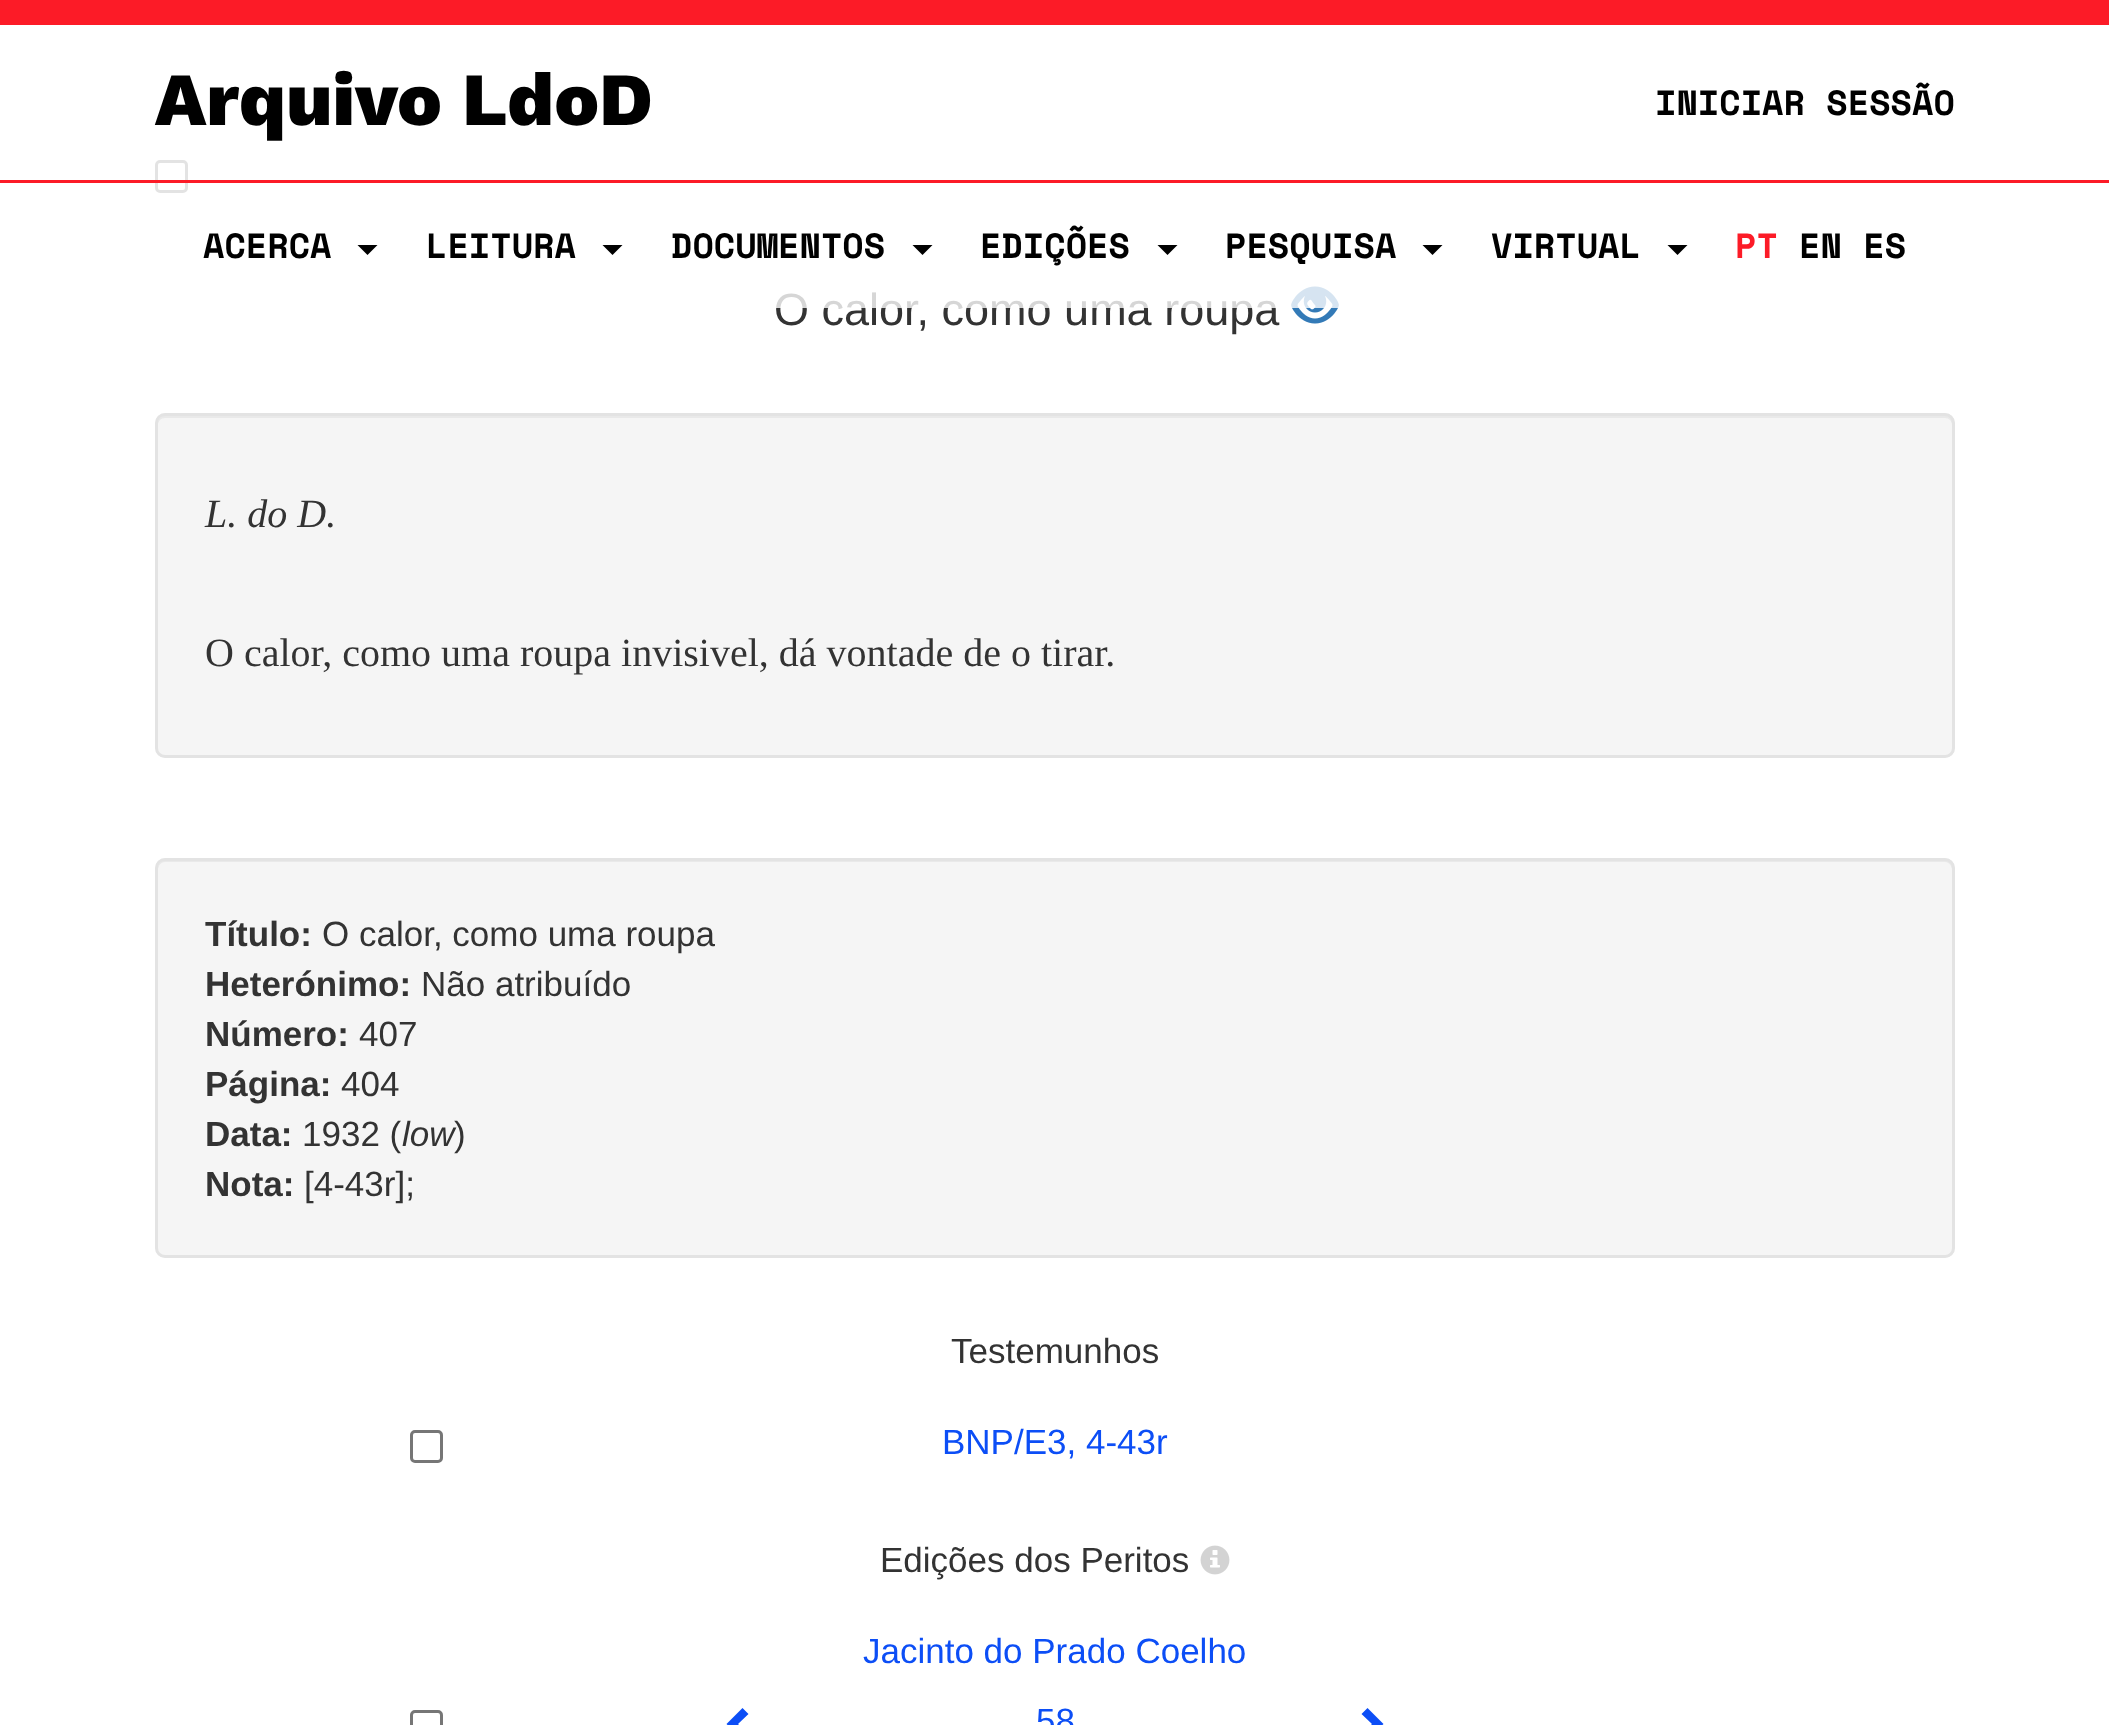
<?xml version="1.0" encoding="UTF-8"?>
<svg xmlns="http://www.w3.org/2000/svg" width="2109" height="1725">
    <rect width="100%" height="100%" fill="#FFFFFF"/>
    <rect x="156.5" y="161.5" width="30" height="30" rx="3.5" fill="none" stroke="#767676" stroke-width="3"/>
    <text x="774" y="325" font-family="Liberation Sans" font-size="45" fill="#333333">O calor, como uma roupa</text>
    <image x="1291" y="286" width="48" height="38" href="img_01.png"/>
    <rect x="155" y="160" width="1184" height="148" fill="#FFFFFF" fill-opacity="0.8"/>
    <rect x="0" y="0" width="2109" height="25" fill="#FC1B27"/>
    <rect x="0" y="180" width="2109" height="3" fill="#FC1B27"/>
    <text x="155" y="125" font-family="Work Sans" font-size="75" font-weight="800" fill="#000000">Arquivo LdoD</text>
    <text x="1655" y="115" font-family="Space Mono" font-size="35" font-weight="700" fill="#000000">INICIAR SESSÃO</text>
    <text x="203" y="258" font-family="Space Mono" font-size="35" font-weight="700" fill="#000000">ACERCA</text>
    <path d="M 357.5 245 H 377.5 L 367.5 255 Z" fill="#000000"/>
    <text x="426" y="258" font-family="Space Mono" font-size="35" font-weight="700" fill="#000000">LEITURA</text>
    <path d="M 602.5 245 H 622.5 L 612.5 255 Z" fill="#000000"/>
    <text x="671" y="258" font-family="Space Mono" font-size="35" font-weight="700" fill="#000000">DOCUMENTOS</text>
    <path d="M 912.5 245 H 932.5 L 922.5 255 Z" fill="#000000"/>
    <text x="980" y="258" font-family="Space Mono" font-size="35" font-weight="700" fill="#000000">EDIÇÕES</text>
    <path d="M 1157.5 245 H 1177.5 L 1167.5 255 Z" fill="#000000"/>
    <text x="1225" y="258" font-family="Space Mono" font-size="35" font-weight="700" fill="#000000">PESQUISA</text>
    <path d="M 1422.5 245 H 1442.5 L 1432.5 255 Z" fill="#000000"/>
    <text x="1491" y="258" font-family="Space Mono" font-size="35" font-weight="700" fill="#000000">VIRTUAL</text>
    <path d="M 1667.5 245 H 1687.5 L 1677.5 255 Z" fill="#000000"/>
    <text x="1735" y="258" font-family="Space Mono" font-size="35" font-weight="700" fill="#FC1B27">PT</text>
    <text x="1799" y="258" font-family="Space Mono" font-size="35" font-weight="700" fill="#000000">EN ES</text>
    <rect x="155" y="413" width="1800" height="345" rx="10" fill="#F5F5F5"/>
    <path d="M 165 418 H 1945 C 1949 418 1952 421 1952 425 V 751 C 1953 750 1953 748 1953 747 V 423 C 1953 419 1949 415 1945 415 H 166 C 162 415 158 419 158 423 V 425 C 158 421 161 418 165 418 Z" fill="#E9E9E9"/>
    <rect x="156.5" y="414.5" width="1797" height="342" rx="8.5" fill="none" stroke="#E3E3E3" stroke-width="3"/>
    <text x="205" y="527" font-family="Liberation Serif" font-size="40" font-style="italic" fill="#333333">L. do D.</text>
    <text x="205" y="666" font-family="Liberation Serif" font-size="40" fill="#333333">O calor, como uma roupa invisivel, dá vontade de o tirar.</text>
    <rect x="155" y="858" width="1800" height="400" rx="10" fill="#F5F5F5"/>
    <path d="M 165 862 H 1945 C 1949 862 1952 866 1952 870 V 1251 C 1953 1250 1953 1248 1953 1247 V 868 C 1953 864 1949 860 1945 860 H 166 C 162 860 158 864 158 868 V 870 C 158 866 161 862 165 862 Z" fill="#E9E9E9"/>
    <rect x="156.5" y="859.5" width="1797" height="397" rx="8.5" fill="none" stroke="#E3E3E3" stroke-width="3"/>
    <text x="205" y="946" font-family="Liberation Sans" font-size="35" font-weight="700" fill="#333333">Título:</text>
    <text x="322" y="946" font-family="Liberation Sans" font-size="35" fill="#333333">O calor, como uma roupa</text>
    <text x="205" y="996" font-family="Liberation Sans" font-size="35" font-weight="700" fill="#333333">Heterónimo:</text>
    <text x="421" y="996" font-family="Liberation Sans" font-size="35" fill="#333333">Não atribuído</text>
    <text x="205" y="1046" font-family="Liberation Sans" font-size="35" font-weight="700" fill="#333333">Número:</text>
    <text x="359" y="1046" font-family="Liberation Sans" font-size="35" fill="#333333">407</text>
    <text x="205" y="1096" font-family="Liberation Sans" font-size="35" font-weight="700" fill="#333333">Página:</text>
    <text x="341" y="1096" font-family="Liberation Sans" font-size="35" fill="#333333">404</text>
    <text x="205" y="1146" font-family="Liberation Sans" font-size="35" font-weight="700" fill="#333333">Data:</text>
    <text x="302" y="1146" font-family="Liberation Sans" font-size="35" fill="#333333">1932 (</text>
    <text x="402" y="1146" font-family="Liberation Sans" font-size="35" font-style="italic" fill="#333333">low</text>
    <text x="454" y="1146" font-family="Liberation Sans" font-size="35" fill="#333333">)</text>
    <text x="205" y="1196" font-family="Liberation Sans" font-size="35" font-weight="700" fill="#333333">Nota:</text>
    <text x="304" y="1196" font-family="Liberation Sans" font-size="35" fill="#333333">[4-43r];</text>
    <text x="951" y="1363" font-family="Liberation Sans" font-size="35" fill="#333333">Testemunhos</text>
    <rect x="411.5" y="1431.5" width="30" height="30" rx="3.5" fill="none" stroke="#767676" stroke-width="3"/>
    <text x="942" y="1454" font-family="Liberation Sans" font-size="35" fill="#0C4EF6">BNP/E3, 4-43r</text>
    <text x="880" y="1572" font-family="Liberation Sans" font-size="35" fill="#333333">Edições dos Peritos</text>
    <image x="1200" y="1545" width="30" height="30" href="img_02.png"/>
    <text x="863" y="1663" font-family="Liberation Sans" font-size="35" fill="#0C4EF6">Jacinto do Prado Coelho</text>
    <rect x="411.5" y="1711.5" width="30" height="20" rx="3.5" fill="none" stroke="#767676" stroke-width="3"/>
    <path d="M 748.5 1714 L 738 1724 L 748.5 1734.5 L 742.5 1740 L 726.5 1724 L 742.5 1708 Z" fill="#0C4EF6"/>
    <text x="1036" y="1733" font-family="Liberation Sans" font-size="35" fill="#0C4EF6">58</text>
    <path d="M 1383.5 1724 L 1367.5 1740 L 1361.5 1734.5 L 1372 1724 L 1361.5 1714 L 1367.5 1708 Z" fill="#0C4EF6"/>
</svg>
